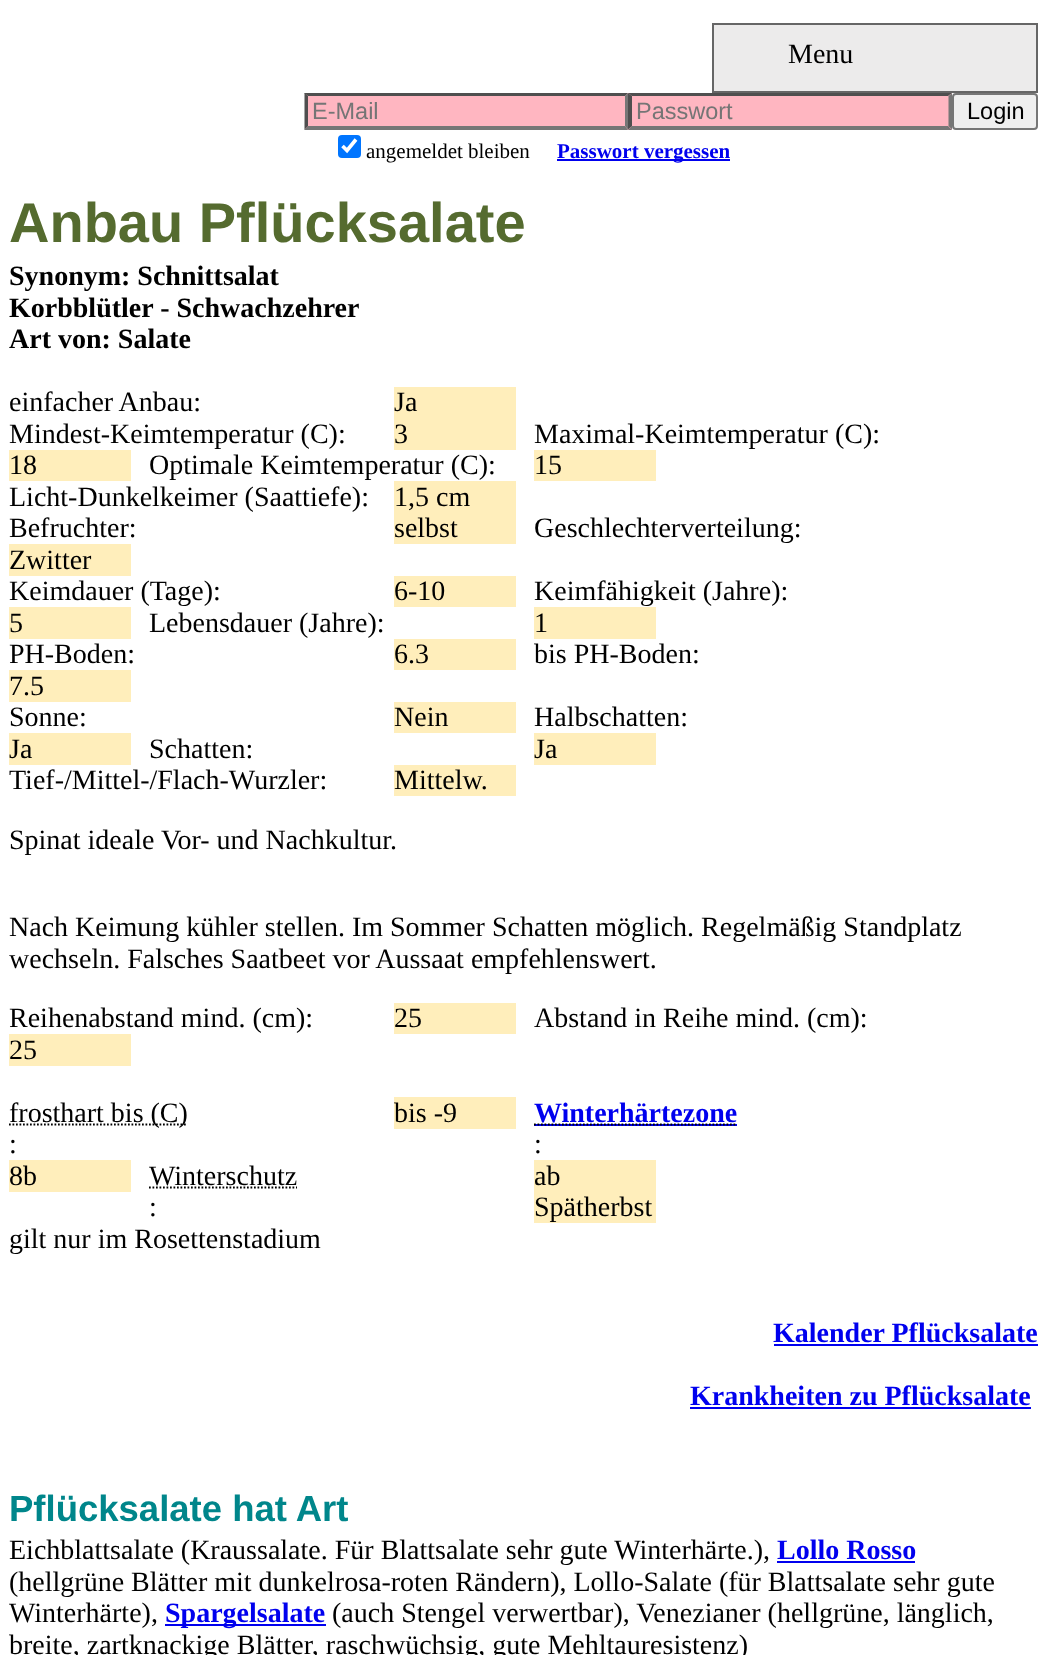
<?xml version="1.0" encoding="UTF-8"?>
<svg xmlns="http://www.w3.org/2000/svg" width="1040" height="1655">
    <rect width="100%" height="100%" fill="#FFFFFF"/>
    <rect x="713" y="24" width="324" height="68" fill="#ECEBEB" stroke="#666666" stroke-width="2"/>
    <text x="788" y="63" font-family="Liberation Serif" font-size="28" fill="#000000">Menu</text>
    <rect x="305" y="93" width="647" height="37" fill="#FFB6C1"/>
    <path d="M 304 93 H 628 L 625 96 H 308 Z" fill="#4F4F4F"/>
    <path d="M 628 93 V 129.5 L 625 126 V 96 Z" fill="#767676"/>
    <path d="M 628 130 H 304 L 308 126 H 625 Z" fill="#767676"/>
    <path d="M 304.5 129.5 V 93 L 308 96 V 126 Z" fill="#4F4F4F"/>
    <text x="312" y="119" font-family="Liberation Sans" font-size="23.5" fill="#757575">E-Mail</text>
    <path d="M 628 93 H 952 L 948 96 H 632 Z" fill="#4F4F4F"/>
    <path d="M 952 93 V 129.5 L 948.5 126 V 96 Z" fill="#767676"/>
    <path d="M 952 130 H 628 L 632 126 H 948 Z" fill="#767676"/>
    <path d="M 628 129.5 V 93 L 632 96 V 126 Z" fill="#4F4F4F"/>
    <text x="636" y="119" font-family="Liberation Sans" font-size="23.5" fill="#757575">Passwort</text>
    <rect x="953" y="94" width="84" height="35" rx="3" fill="#EFEFEF" stroke="#767676" stroke-width="2"/>
    <text x="967" y="119" font-family="Liberation Sans" font-size="23.5" fill="#000000">Login</text>
    <rect x="338" y="135" width="23" height="23" rx="4" fill="#0075FF"/>
    <path d="M 342.5 146 L 347 150.5 L 356 139.5" fill="none" stroke="#FFFFFF" stroke-width="3.6"/>
    <text x="366" y="158" font-family="Liberation Serif" font-size="21" fill="#000000">angemeldet bleiben</text>
    <rect x="557" y="159" width="173" height="2" fill="#0000EE"/>
    <text x="557" y="158" font-family="Liberation Serif" font-size="21" font-weight="700" fill="#0000EE">Passwort vergessen</text>
    <text x="9" y="242" font-family="Liberation Sans" font-size="56" font-weight="700" fill="#556B2F">Anbau Pflücksalate</text>
    <text font-family="Liberation Serif" font-size="28" font-weight="700" fill="#000000">
        <tspan x="9" y="285">Synonym: Schnittsalat</tspan>
        <tspan x="9" y="317">Korbblütler - Schwachzehrer</tspan>
        <tspan x="9" y="348">Art von: Salate</tspan>
    </text>
    <text x="9" y="411" font-family="Liberation Serif" font-size="28" fill="#000000">einfacher Anbau:</text>
    <rect x="394" y="387" width="122" height="63" fill="#FFEEBB"/>
    <text x="394" y="411" font-family="Liberation Serif" font-size="28" fill="#000000">Ja</text>
    <text x="9" y="443" font-family="Liberation Serif" font-size="28" fill="#000000">Mindest-Keimtemperatur (C):</text>
    <text x="394" y="443" font-family="Liberation Serif" font-size="28" fill="#000000">3</text>
    <text x="534" y="443" font-family="Liberation Serif" font-size="28" fill="#000000">Maximal-Keimtemperatur (C):</text>
    <rect x="9" y="450" width="122" height="31" fill="#FFEEBB"/>
    <text x="9" y="474" font-family="Liberation Serif" font-size="28" fill="#000000">18</text>
    <text x="149" y="474" font-family="Liberation Serif" font-size="28" fill="#000000">Optimale Keimtemperatur (C):</text>
    <rect x="534" y="450" width="122" height="31" fill="#FFEEBB"/>
    <text x="534" y="474" font-family="Liberation Serif" font-size="28" fill="#000000">15</text>
    <text x="9" y="506" font-family="Liberation Serif" font-size="28" fill="#000000">Licht-Dunkelkeimer (Saattiefe):</text>
    <rect x="394" y="481" width="122" height="63" fill="#FFEEBB"/>
    <text x="394" y="506" font-family="Liberation Serif" font-size="28" fill="#000000">1,5 cm</text>
    <text x="9" y="537" font-family="Liberation Serif" font-size="28" fill="#000000">Befruchter:</text>
    <text x="394" y="537" font-family="Liberation Serif" font-size="28" fill="#000000">selbst</text>
    <text x="534" y="537" font-family="Liberation Serif" font-size="28" fill="#000000">Geschlechterverteilung:</text>
    <rect x="9" y="544" width="122" height="32" fill="#FFEEBB"/>
    <text font-family="Liberation Serif" font-size="28" fill="#000000">
        <tspan x="9" y="569">Zwitter</tspan>
        <tspan x="9" y="600">Keimdauer (Tage):</tspan>
    </text>
    <rect x="394" y="576" width="122" height="31" fill="#FFEEBB"/>
    <text x="394" y="600" font-family="Liberation Serif" font-size="28" fill="#000000">6-10</text>
    <text x="534" y="600" font-family="Liberation Serif" font-size="28" fill="#000000">Keimfähigkeit (Jahre):</text>
    <rect x="9" y="607" width="122" height="32" fill="#FFEEBB"/>
    <text x="9" y="632" font-family="Liberation Serif" font-size="28" fill="#000000">5</text>
    <text x="149" y="632" font-family="Liberation Serif" font-size="28" fill="#000000">Lebensdauer (Jahre):</text>
    <rect x="534" y="607" width="122" height="32" fill="#FFEEBB"/>
    <text x="534" y="632" font-family="Liberation Serif" font-size="28" fill="#000000">1</text>
    <text x="9" y="663" font-family="Liberation Serif" font-size="28" fill="#000000">PH-Boden:</text>
    <rect x="394" y="639" width="122" height="31" fill="#FFEEBB"/>
    <text x="394" y="663" font-family="Liberation Serif" font-size="28" fill="#000000">6.3</text>
    <text x="534" y="663" font-family="Liberation Serif" font-size="28" fill="#000000">bis PH-Boden:</text>
    <rect x="9" y="670" width="122" height="32" fill="#FFEEBB"/>
    <text font-family="Liberation Serif" font-size="28" fill="#000000">
        <tspan x="9" y="695">7.5</tspan>
        <tspan x="9" y="726">Sonne:</tspan>
    </text>
    <rect x="394" y="702" width="122" height="31" fill="#FFEEBB"/>
    <text x="394" y="726" font-family="Liberation Serif" font-size="28" fill="#000000">Nein</text>
    <text x="534" y="726" font-family="Liberation Serif" font-size="28" fill="#000000">Halbschatten:</text>
    <rect x="9" y="733" width="122" height="32" fill="#FFEEBB"/>
    <text x="9" y="758" font-family="Liberation Serif" font-size="28" fill="#000000">Ja</text>
    <text x="149" y="758" font-family="Liberation Serif" font-size="28" fill="#000000">Schatten:</text>
    <rect x="534" y="733" width="122" height="32" fill="#FFEEBB"/>
    <text x="534" y="758" font-family="Liberation Serif" font-size="28" fill="#000000">Ja</text>
    <text x="9" y="789" font-family="Liberation Serif" font-size="28" fill="#000000">Tief-/Mittel-/Flach-Wurzler:</text>
    <rect x="394" y="765" width="122" height="31" fill="#FFEEBB"/>
    <text x="394" y="789" font-family="Liberation Serif" font-size="28" fill="#000000">Mittelw.</text>
    <text x="9" y="849" font-family="Liberation Serif" font-size="28" fill="#000000">Spinat ideale Vor- und Nachkultur.</text>
    <text font-family="Liberation Serif" font-size="28" fill="#000000">
        <tspan x="9" y="936">Nach Keimung kühler stellen. Im Sommer Schatten möglich. Regelmäßig Standplatz</tspan>
        <tspan x="9" y="968">wechseln. Falsches Saatbeet vor Aussaat empfehlenswert.</tspan>
    </text>
    <text x="9" y="1027" font-family="Liberation Serif" font-size="28" fill="#000000">Reihenabstand mind. (cm):</text>
    <rect x="394" y="1003" width="122" height="31" fill="#FFEEBB"/>
    <text x="394" y="1027" font-family="Liberation Serif" font-size="28" fill="#000000">25</text>
    <text x="534" y="1027" font-family="Liberation Serif" font-size="28" fill="#000000">Abstand in Reihe mind. (cm):</text>
    <rect x="9" y="1034" width="122" height="32" fill="#FFEEBB"/>
    <text x="9" y="1059" font-family="Liberation Serif" font-size="28" fill="#000000">25</text>
    <path d="M 9 1124.5 H 187.5" fill="none" stroke="#000000" stroke-width="1.8" stroke-dasharray="1.75 1.75"/>
    <text font-family="Liberation Serif" font-size="28" fill="#000000">
        <tspan x="9" y="1122">frosthart bis (C)</tspan>
        <tspan x="9" y="1153">:</tspan>
    </text>
    <rect x="394" y="1097" width="122" height="32" fill="#FFEEBB"/>
    <text x="394" y="1122" font-family="Liberation Serif" font-size="28" fill="#000000">bis -9</text>
    <text x="534" y="1122" font-family="Liberation Serif" font-size="28" font-weight="700" fill="#0000EE">Winterhärtezone</text>
    <rect x="534" y="1124" width="203" height="2" fill="#0000EE"/>
    <path d="M 534 1124.5 H 737" fill="none" stroke="#000000" stroke-width="1.8" stroke-dasharray="1.75 1.75"/>
    <text x="534" y="1153" font-family="Liberation Serif" font-size="28" fill="#000000">:</text>
    <rect x="9" y="1160" width="122" height="32" fill="#FFEEBB"/>
    <text x="9" y="1185" font-family="Liberation Serif" font-size="28" fill="#000000">8b</text>
    <text x="149" y="1185" font-family="Liberation Serif" font-size="28" fill="#000000">Winterschutz</text>
    <path d="M 149 1187.5 H 297" fill="none" stroke="#000000" stroke-width="1.8" stroke-dasharray="1.75 1.75"/>
    <text x="149" y="1216" font-family="Liberation Serif" font-size="28" fill="#000000">:</text>
    <rect x="534" y="1160" width="122" height="63" fill="#FFEEBB"/>
    <text font-family="Liberation Serif" font-size="28" fill="#000000">
        <tspan x="534" y="1185">ab</tspan>
        <tspan x="534" y="1216">Spätherbst</tspan>
    </text>
    <text x="9" y="1248" font-family="Liberation Serif" font-size="28" fill="#000000">gilt nur im Rosettenstadium</text>
    <text x="773" y="1342" font-family="Liberation Serif" font-size="28" font-weight="700" fill="#0000EE">Kalender Pflücksalate</text>
    <rect x="774" y="1344" width="264" height="2" fill="#0000EE"/>
    <text x="690" y="1405" font-family="Liberation Serif" font-size="28" font-weight="700" fill="#0000EE">Krankheiten zu Pflücksalate</text>
    <rect x="690" y="1407" width="341" height="2" fill="#0000EE"/>
    <text x="9" y="1521" font-family="Liberation Sans" font-size="36.5" font-weight="700" fill="#00868B">Pflücksalate hat Art</text>
    <text x="9" y="1559" font-family="Liberation Serif" font-size="28" fill="#000000">Eichblattsalate (Kraussalate. Für Blattsalate sehr gute Winterhärte.),</text>
    <text x="777" y="1559" font-family="Liberation Serif" font-size="28" font-weight="700" fill="#0000EE">Lollo Rosso</text>
    <rect x="777" y="1561" width="138" height="2" fill="#0000EE"/>
    <text font-family="Liberation Serif" font-size="28" fill="#000000">
        <tspan x="9" y="1591">(hellgrüne Blätter mit dunkelrosa-roten Rändern), Lollo-Salate (für Blattsalate sehr gute</tspan>
        <tspan x="9" y="1622">Winterhärte),</tspan>
    </text>
    <rect x="165" y="1624" width="161" height="2" fill="#0000EE"/>
    <text x="165" y="1622" font-family="Liberation Serif" font-size="28" font-weight="700" fill="#0000EE">Spargelsalate</text>
    <text x="332" y="1622" font-family="Liberation Serif" font-size="28" fill="#000000">(auch Stengel verwertbar), Venezianer (hellgrüne, länglich,</text>
    <text x="9" y="1654" font-family="Liberation Serif" font-size="28" fill="#000000">breite, zartknackige Blätter, raschwüchsig, gute Mehltauresistenz)</text>
</svg>
